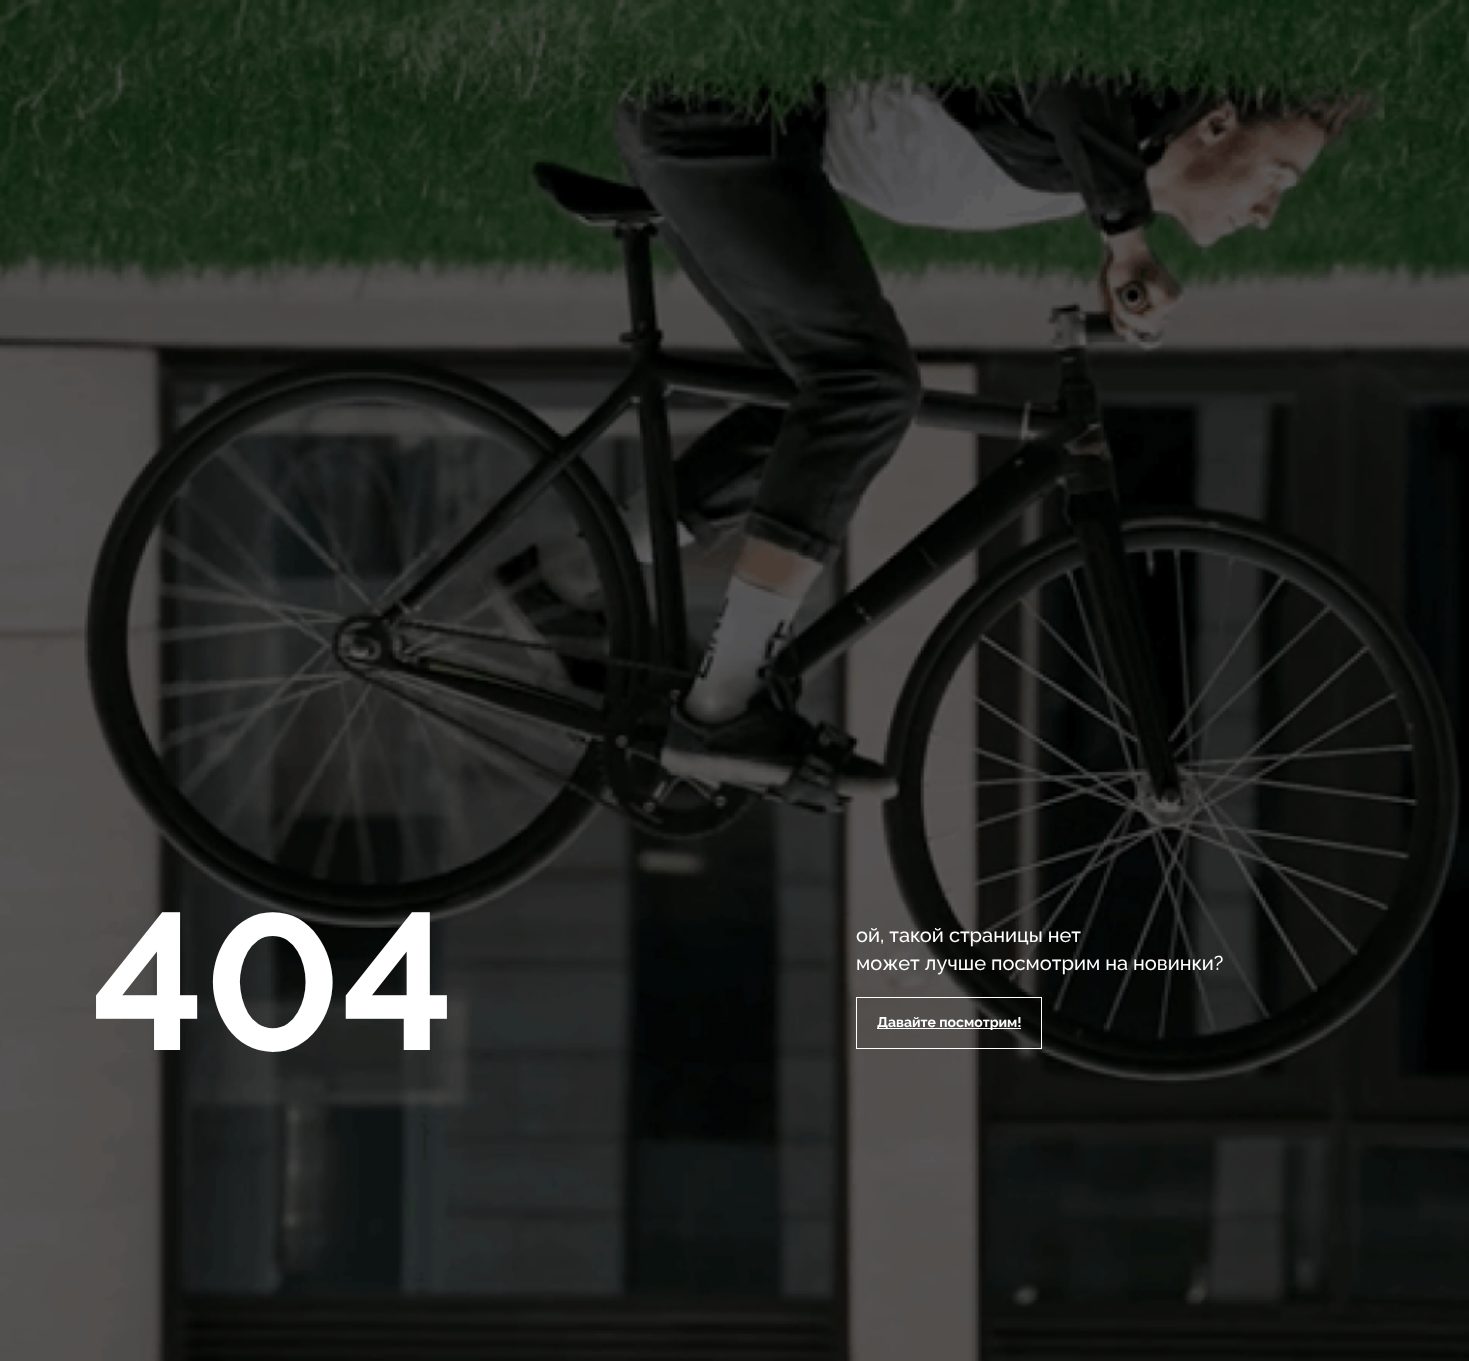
<?xml version="1.0" encoding="UTF-8"?>
<svg xmlns="http://www.w3.org/2000/svg" width="1469" height="1361">
    <rect width="100%" height="100%" fill="#FFFFFF"/>
    <image x="0" y="0" width="1469" height="1361" href="img_01.png"/>
    <text x="91" y="1050" font-family="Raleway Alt" font-size="194" font-weight="700" fill="#FFFFFF">404</text>
    <text font-family="Raleway" font-size="20" font-weight="500" fill="#FFFFFF">
        <tspan x="856" y="942">ой, такой страницы нет</tspan>
        <tspan x="856" y="970">может лучше посмотрим на новинки?</tspan>
    </text>
    <rect x="856.5" y="997.5" width="185" height="51" fill="none" stroke="#FFFFFF"/>
    <rect x="877" y="1028" width="144" height="1" fill="#FFFFFF"/>
    <text x="877" y="1027" font-family="Raleway" font-size="14" font-weight="700" fill="#FFFFFF">Давайте посмотрим!</text>
</svg>
